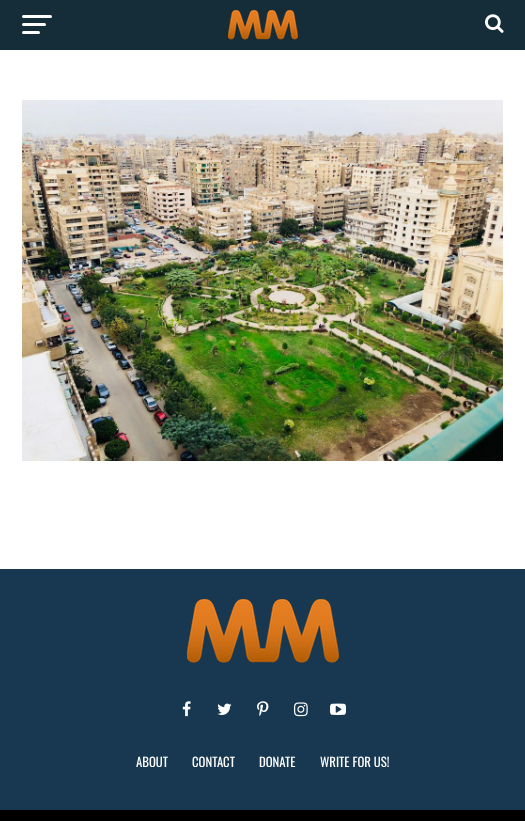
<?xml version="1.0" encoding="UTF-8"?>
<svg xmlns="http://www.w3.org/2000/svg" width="525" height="821">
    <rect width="100%" height="100%" fill="#FFFFFF"/>
    <rect x="0" y="0" width="525" height="50" fill="#152C39"/>
    <rect x="22" y="15" width="30" height="3" rx="1.5" fill="#FFFFFF"/>
    <rect x="22" y="23" width="24" height="3" rx="1.5" fill="#FFFFFF"/>
    <rect x="22" y="31" width="18" height="3" rx="1.5" fill="#FFFFFF"/>
    <image x="228" y="10" width="70" height="30" href="img_01.png"/>
    <image x="485" y="14" width="19" height="19" href="img_02.png"/>
    <image x="22" y="100" width="481" height="361" href="img_03.png"/>
    <rect x="0" y="569" width="525" height="241" fill="#173850"/>
    <image x="187" y="599" width="152" height="64" href="img_04.png"/>
    <image x="182" y="701" width="9" height="16" href="img_05.png"/>
    <image x="217" y="703" width="15" height="12" href="img_06.png"/>
    <image x="257" y="701" width="12" height="16" href="img_07.png"/>
    <image x="294" y="702" width="14" height="15" href="img_08.png"/>
    <image x="330" y="703" width="16" height="12" href="img_09.png"/>
    <text x="136" y="767" font-family="Oswald" font-size="12.75" fill="#FFFFFF">ABOUT</text>
    <text x="192" y="767" font-family="Oswald" font-size="12.75" fill="#FFFFFF">CONTACT</text>
    <text x="259" y="767" font-family="Oswald" font-size="12.75" fill="#FFFFFF">DONATE</text>
    <text x="320" y="767" font-family="Oswald" font-size="12.75" fill="#FFFFFF">WRITE FOR US!</text>
    <rect x="0" y="810" width="525" height="11" fill="#000000"/>
</svg>
